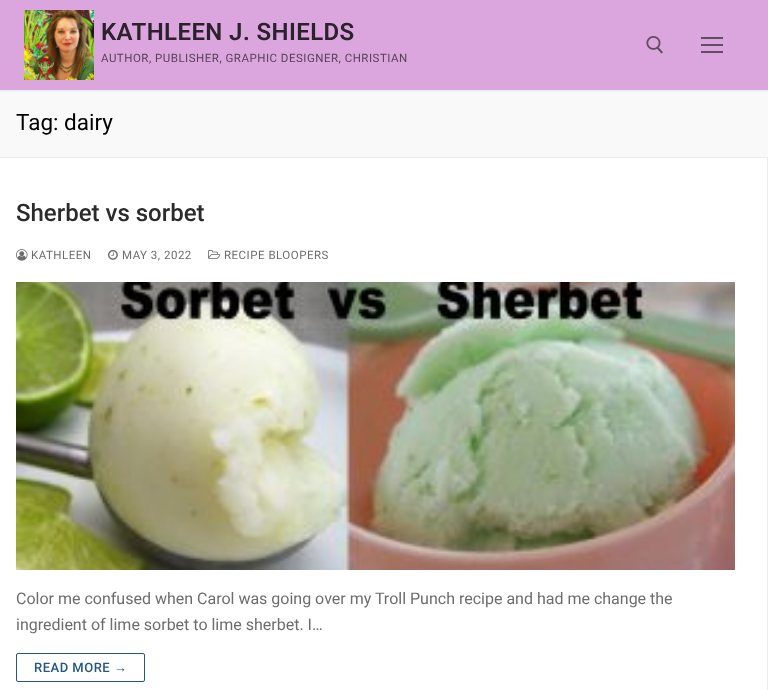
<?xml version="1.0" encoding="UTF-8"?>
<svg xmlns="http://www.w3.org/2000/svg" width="768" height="690">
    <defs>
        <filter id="blur1" x="-50%" y="-200%" width="200%" height="500%"><feGaussianBlur stdDeviation="1"/></filter>
    </defs>
    <rect width="100%" height="100%" fill="#FFFFFF"/>
    <rect x="0" y="90" width="768" height="67" fill="#F9F9F9"/>
    <rect x="0" y="1" width="768" height="90" fill="#E1E5EA" filter="url(#blur1)"/>
    <rect x="0" y="0" width="768" height="90" fill="#DAA6DD"/>
    <image x="24" y="10" width="70" height="70" href="img_01.png"/>
    <text x="101" y="40" font-family="Roboto" font-size="24" font-weight="600" letter-spacing="0.4" fill="#2C212C">KATHLEEN J. SHIELDS</text>
    <text x="101" y="62" font-family="Roboto" font-size="11.5" letter-spacing="0.5" fill="#574258">AUTHOR, PUBLISHER, GRAPHIC DESIGNER, CHRISTIAN</text>
    <image x="646" y="36" width="17" height="18" href="img_02.png"/>
    <rect x="701" y="44" width="22" height="2" fill="#624B63"/>
    <rect x="701" y="37" width="22" height="2" fill="#624B63"/>
    <rect x="701" y="51" width="22" height="2" fill="#624B63"/>
    <rect x="0" y="157" width="768" height="1" fill="#EAECEE"/>
    <text x="16" y="130" font-family="Roboto" font-size="22.5" fill="#000000">Tag: dairy</text>
    <rect x="767" y="158" width="1" height="532" fill="#EAECEE"/>
    <text x="16" y="221" font-family="Roboto" font-size="24" font-weight="500" fill="#2B2B2B">Sherbet vs sorbet</text>
    <image x="16" y="249" width="12" height="12" href="img_03.png"/>
    <text x="31" y="259" font-family="Roboto" font-size="11.5" letter-spacing="0.5" fill="#6D6D6D">KATHLEEN</text>
    <image x="108" y="250" width="10" height="10" href="img_04.png"/>
    <text x="122" y="259" font-family="Roboto" font-size="11.5" letter-spacing="0.5" fill="#6D6D6D">MAY 3, 2022</text>
    <image x="208" y="249" width="13" height="10" href="img_05.png"/>
    <text x="224" y="259" font-family="Roboto" font-size="11.5" letter-spacing="0.5" fill="#6D6D6D">RECIPE BLOOPERS</text>
    <image x="16" y="282" width="719" height="288" href="img_06.png"/>
    <text font-family="Roboto" font-size="16" fill="#6D6D6D">
        <tspan x="16" y="604">Color me confused when Carol was going over my Troll Punch recipe and had me change the</tspan>
        <tspan x="16" y="630">ingredient of lime sorbet to lime sherbet. I…</tspan>
    </text>
    <rect x="16.5" y="653.5" width="128" height="28" rx="1.5" fill="none" stroke="#235787"/>
    <text x="34" y="672" font-family="Roboto" font-size="13" font-weight="500" letter-spacing="0.5" fill="#235787">READ MORE</text>
    <text x="114" y="672" font-family="Liberation Sans" font-size="13" letter-spacing="0.5" fill="#235787">→</text>
</svg>
